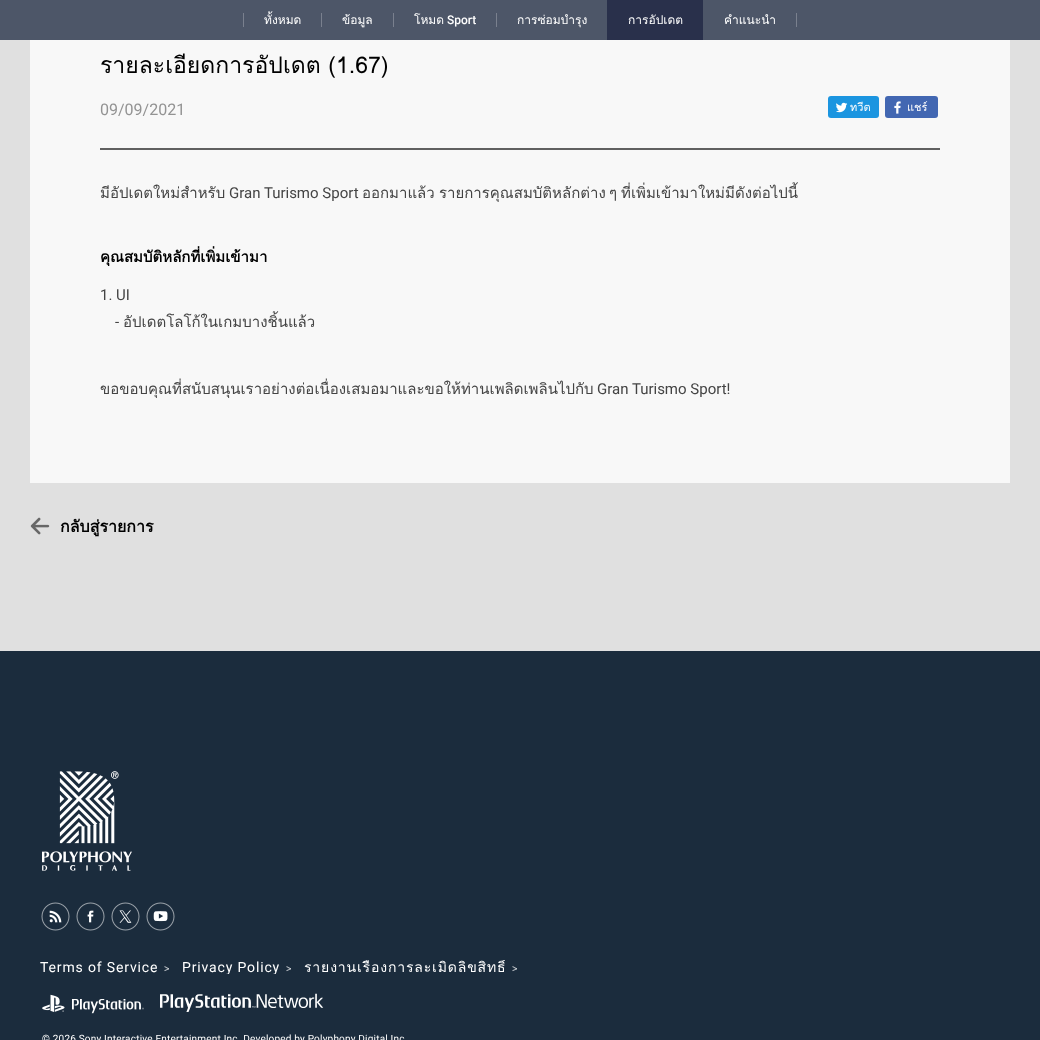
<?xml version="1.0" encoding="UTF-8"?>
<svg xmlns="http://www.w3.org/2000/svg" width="1040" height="1040">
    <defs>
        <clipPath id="clip1"><rect x="40" y="960" width="958" height="14"/></clipPath>
    </defs>
    <rect width="100%" height="100%" fill="#E0E0E0"/>
    <rect x="0" y="0" width="1040" height="40" fill="#4D5668"/>
    <text x="264" y="24" font-family="Loma" font-size="12" fill="#FFFFFF">ทั้งหมด</text>
    <rect x="243" y="13" width="1" height="14" fill="#7A808E"/>
    <text x="342" y="24" font-family="Loma" font-size="12" fill="#FFFFFF">ข้อมูล</text>
    <rect x="321" y="13" width="1" height="14" fill="#7A808E"/>
    <text x="414" y="24" font-family="Loma" font-size="12" fill="#FFFFFF">โหมด</text>
    <rect x="393" y="13" width="1" height="14" fill="#7A808E"/>
    <text x="447" y="24" font-family="Roboto" font-size="12" font-weight="500" fill="#FFFFFF">Sport</text>
    <text x="517" y="24" font-family="Loma" font-size="12" fill="#FFFFFF">การซ่อมบำรุง</text>
    <rect x="496" y="13" width="1" height="14" fill="#7A808E"/>
    <rect x="607" y="0" width="96" height="40" fill="#29304B"/>
    <text x="628" y="24" font-family="Loma" font-size="12" fill="#FFFFFF">การอัปเดต</text>
    <text x="724" y="24" font-family="Loma" font-size="12" fill="#FFFFFF">คำแนะนำ</text>
    <rect x="796" y="13" width="1" height="14" fill="#7A808E"/>
    <rect x="30" y="40" width="980" height="443" fill="#F8F8F8"/>
    <rect x="100" y="148" width="840" height="2" fill="#606060"/>
    <text x="100" y="73" font-family="Loma" font-size="23" fill="#000000">รายละเอียดการอัปเดต (1.67)</text>
    <text x="100" y="115" font-family="Roboto" font-size="16" fill="#939393">09/09/2021</text>
    <rect x="828" y="96" width="51" height="22" rx="3" fill="#1B95E0"/>
    <image x="836" y="102" width="12" height="11" href="img_01.png"/>
    <text x="850" y="111" font-family="Loma" font-size="11" fill="#FFFFFF">ทวีต</text>
    <rect x="885" y="96" width="53" height="22" rx="3" fill="#4267B2"/>
    <image x="894" y="101" width="7" height="13" href="img_02.png"/>
    <text x="907" y="111" font-family="Loma" font-size="11" fill="#FFFFFF">แชร์</text>
    <text x="100" y="198" font-family="Loma" font-size="15" fill="#444444">มีอัปเดตใหม่สำหรับ</text>
    <text x="229" y="198" font-family="Roboto" font-size="15" fill="#444444">Gran Turismo Sport</text>
    <text x="362" y="198" font-family="Loma" font-size="15" fill="#444444">ออกมาแล้ว</text>
    <text x="439" y="198" font-family="Loma" font-size="15" fill="#444444">รายการคุณสมบัติหลักต่าง</text>
    <text x="609" y="198" font-family="Loma" font-size="15" fill="#444444">ๆ</text>
    <text x="621" y="198" font-family="Loma" font-size="15" fill="#444444">ที่เพิ่มเข้ามาใหม่มีดังต่อไปนี้</text>
    <text x="100" y="262" font-family="Loma" font-size="15" font-weight="700" fill="#000000">คุณสมบัติหลักที่เพิ่มเข้ามา</text>
    <text x="100" y="300" font-family="Roboto" font-size="15" fill="#444444">1. UI</text>
    <text x="115" y="327" font-family="Roboto" font-size="15" fill="#444444">-</text>
    <text x="123" y="327" font-family="Loma" font-size="15" fill="#444444">อัปเดตโลโก้ในเกมบางชิ้นแล้ว</text>
    <text x="100" y="394" font-family="Loma" font-size="15" fill="#444444">ขอขอบคุณที่สนับสนุนเราอย่างต่อเนื่องเสมอมาและขอให้ท่านเพลิดเพลินไปกับ</text>
    <text x="597" y="394" font-family="Roboto" font-size="15" fill="#444444">Gran Turismo Sport!</text>
    <image x="30" y="517" width="20" height="18" href="img_03.png"/>
    <text x="60" y="532" font-family="Loma" font-size="16" font-weight="700" fill="#000000">กลับสู่รายการ</text>
    <rect x="0" y="651" width="1040" height="389" fill="#1B2C3D"/>
    <image x="42" y="771" width="90" height="100" href="img_04.png"/>
    <image x="41" y="902" width="29" height="29" href="img_05.png"/>
    <image x="76" y="902" width="29" height="29" href="img_06.png"/>
    <image x="111" y="902" width="29" height="29" href="img_07.png"/>
    <image x="146" y="902" width="29" height="29" href="img_08.png"/>
    <text x="40" y="972" font-family="Roboto" font-size="14" letter-spacing="0.85" fill="#FFFFFF">Terms of Service</text>
    <image x="164" y="966" width="5" height="6" href="img_09.png"/>
    <g clip-path="url(#clip1)">
        <text x="182" y="972" font-family="Roboto" font-size="14" letter-spacing="0.85" fill="#FFFFFF">Privacy Policy</text>
    </g>
    <image x="286" y="966" width="5" height="6" href="img_09.png"/>
    <g clip-path="url(#clip1)">
        <text x="304" y="972" font-family="Loma" font-size="14" letter-spacing="0.85" fill="#FFFFFF">รายงานเรื่องการละเมิดลิขสิทธิ์</text>
    </g>
    <image x="512" y="966" width="5" height="6" href="img_09.png"/>
    <image x="42" y="994" width="102" height="20" href="img_10.png"/>
    <image x="160" y="993" width="164" height="19" href="img_11.png"/>
    <text x="42" y="1042" font-family="Roboto" font-size="10" letter-spacing="0.2" fill="#FFFFFF">© 2026 Sony Interactive Entertainment Inc. Developed by Polyphony Digital Inc</text>
</svg>
